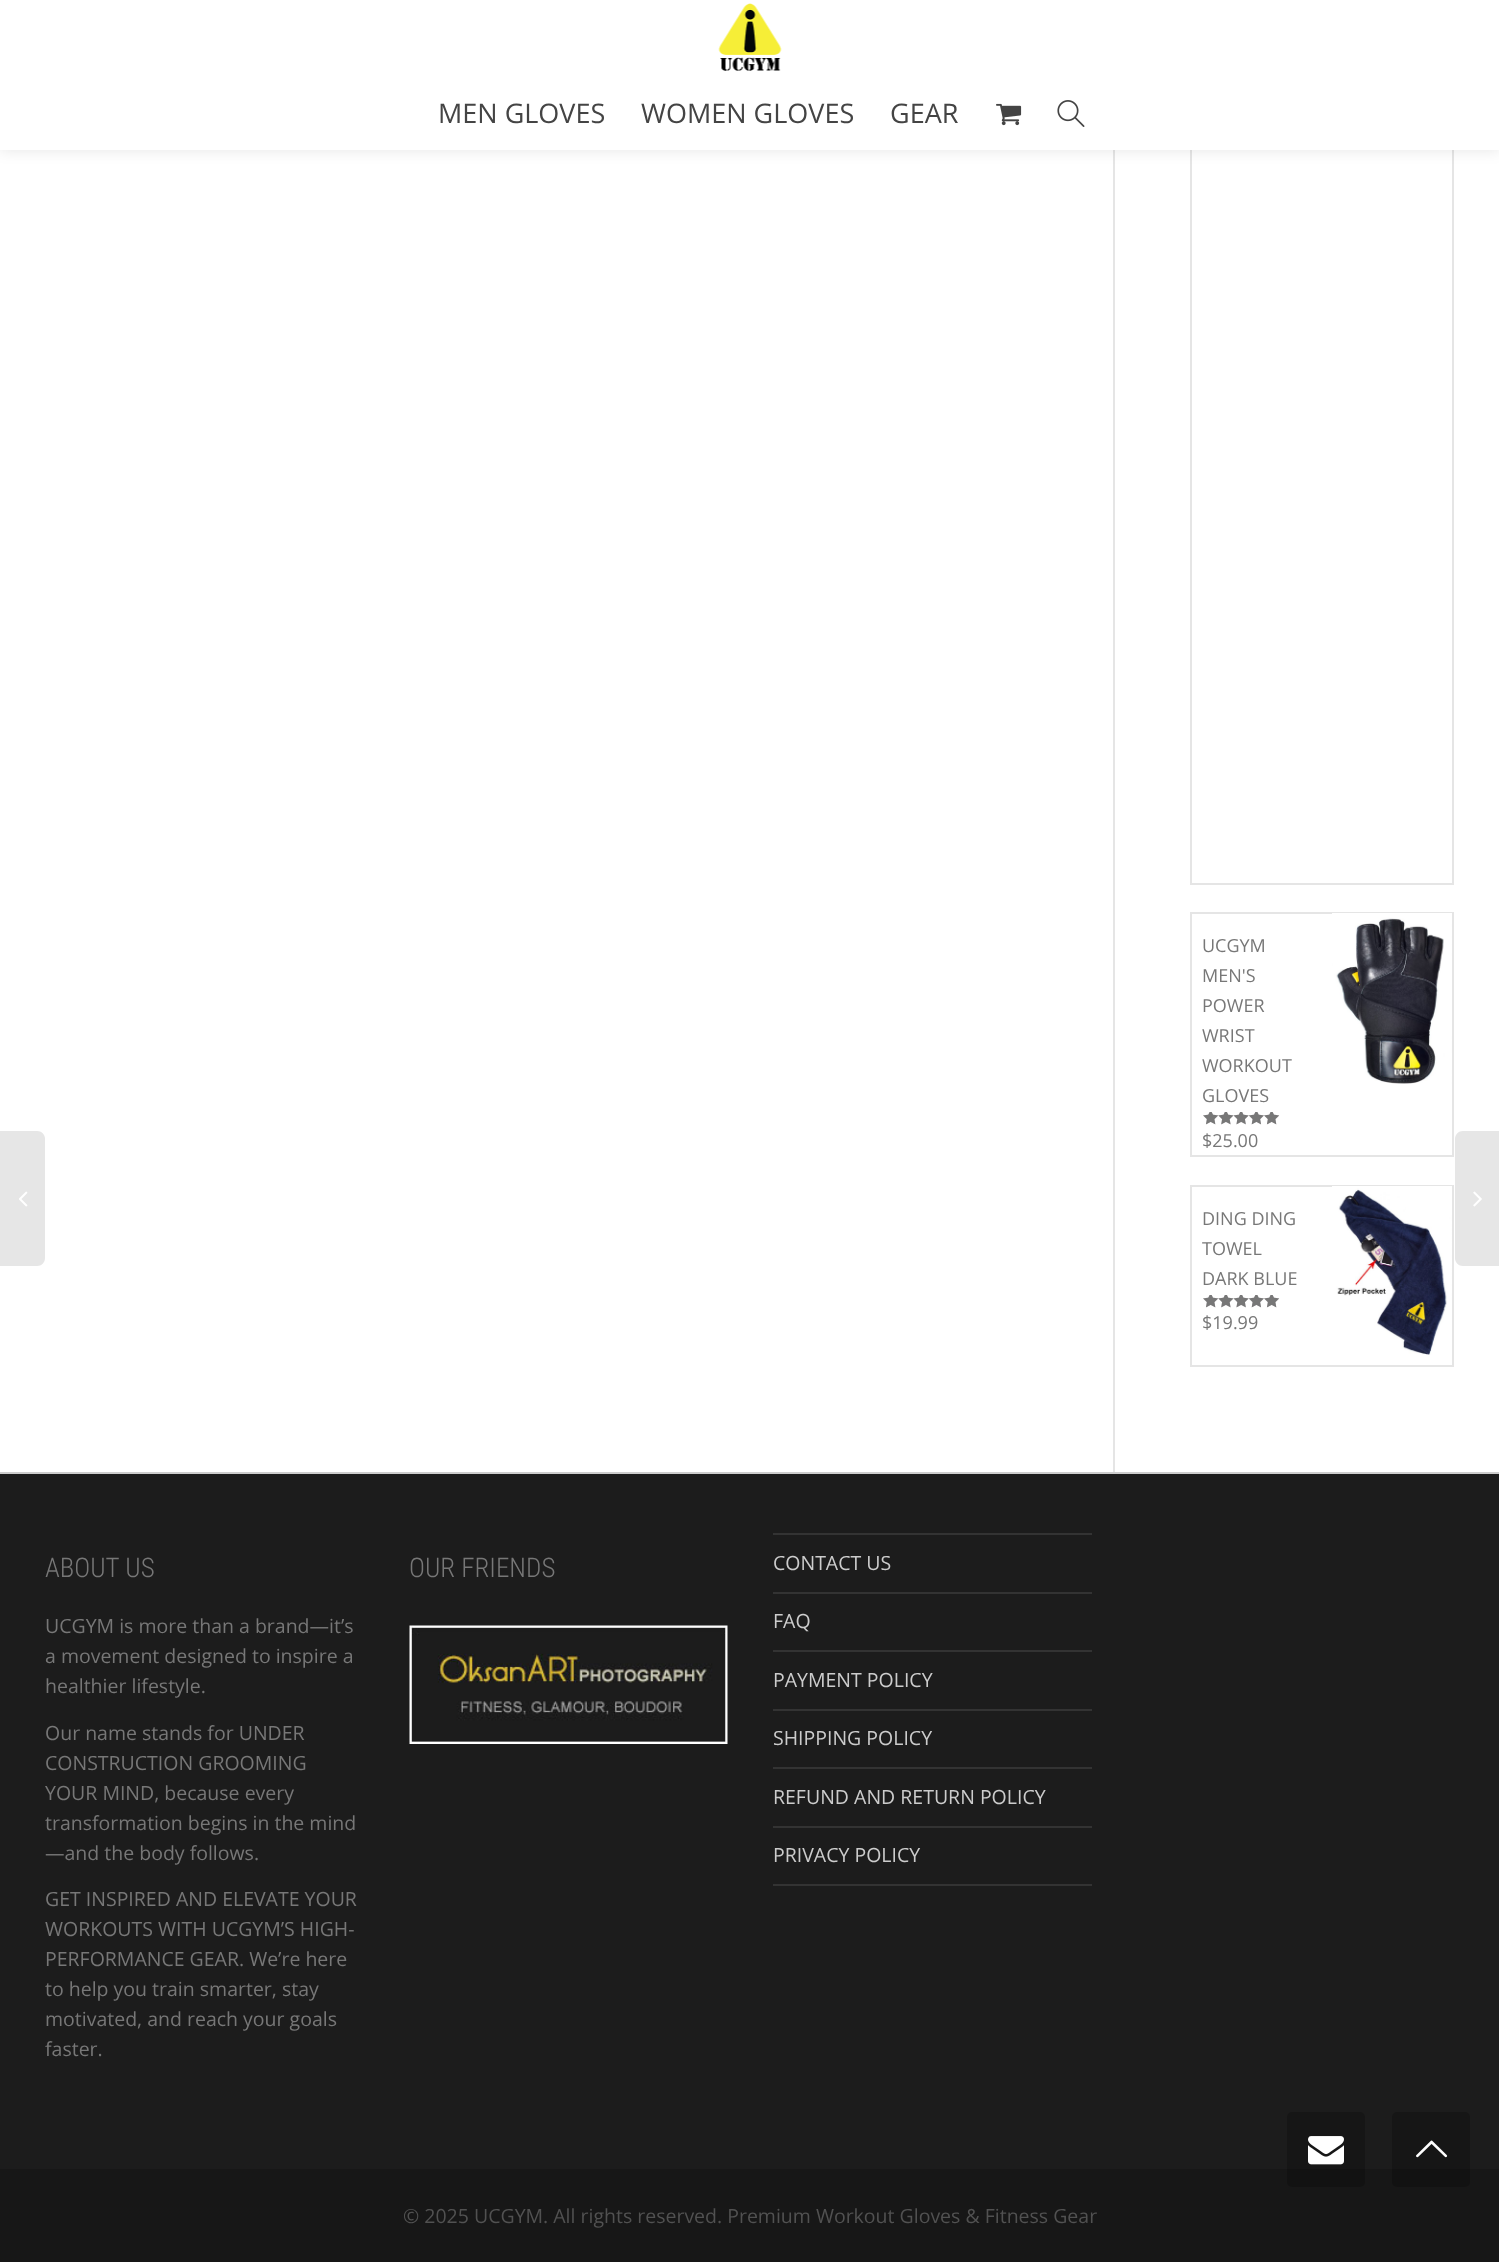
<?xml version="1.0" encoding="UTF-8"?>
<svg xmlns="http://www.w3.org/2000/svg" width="1499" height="2262">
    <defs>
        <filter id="blur1" x="-50%" y="-200%" width="200%" height="500%"><feGaussianBlur stdDeviation="7.5"/></filter>
    </defs>
    <rect width="100%" height="100%" fill="#FFFFFF"/>
    <rect x="1113" y="150" width="2" height="1322" fill="#E5E5E5"/>
    <rect x="1191" y="-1" width="262" height="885" fill="none" stroke="#E5E5E5" stroke-width="2"/>
    <rect x="0" y="0" width="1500" height="150" fill="#000000" fill-opacity="0.1" filter="url(#blur1)"/>
    <rect x="0" y="0" width="1499" height="150" fill="#FFFFFF"/>
    <image x="718" y="3" width="64" height="68" href="img_01.png"/>
    <text x="438" y="123" font-family="Open Sans" font-size="27" fill="#444444">MEN GLOVES</text>
    <text x="641" y="123" font-family="Open Sans" font-size="27" fill="#444444">WOMEN GLOVES</text>
    <text x="890" y="123" font-family="Open Sans" font-size="27" fill="#444444">GEAR</text>
    <image x="996" y="103" width="26" height="23" href="img_02.png"/>
    <image x="1057" y="100" width="28" height="27" href="img_03.png"/>
    <path d="M -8 1131 H 37 C 41.5 1131 45 1134.5 45 1139 V 1258 C 45 1262.5 41.5 1266 37 1266 H -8 Z" fill="#E6E6E6"/>
    <image x="19" y="1191" width="9" height="16" href="img_04.png"/>
    <path d="M 1463 1131 H 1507 V 1266 H 1463 C 1458.5 1266 1455 1262.5 1455 1258 V 1139 C 1455 1134.5 1458.5 1131 1463 1131 Z" fill="#E6E6E6"/>
    <image x="1473" y="1191" width="9" height="16" href="img_05.png"/>
    <rect x="1191" y="913" width="262" height="243" fill="none" stroke="#E5E5E5" stroke-width="2"/>
    <text x="1202" y="952" font-family="Open Sans" font-size="18" fill="#777777">UCGYM</text>
    <image x="1332" y="913" width="120" height="171" href="img_06.png"/>
    <text font-family="Open Sans" font-size="18" fill="#777777">
        <tspan x="1202" y="982">MEN'S</tspan>
        <tspan x="1202" y="1012">POWER</tspan>
        <tspan x="1202" y="1042">WRIST</tspan>
        <tspan x="1202" y="1072">WORKOUT</tspan>
        <tspan x="1202" y="1102">GLOVES</tspan>
    </text>
    <image x="1203" y="1112" width="76" height="13" href="img_07.png"/>
    <image x="1203" y="1112" width="77" height="13" href="img_08.png"/>
    <text x="1202" y="1147" font-family="Open Sans" font-size="18" fill="#777777">$25.00</text>
    <rect x="1191" y="1186" width="262" height="180" fill="none" stroke="#E5E5E5" stroke-width="2"/>
    <text x="1202" y="1225" font-family="Open Sans" font-size="18" fill="#777777">DING DING</text>
    <image x="1332" y="1186" width="120" height="169" href="img_09.png"/>
    <text font-family="Open Sans" font-size="18" fill="#777777">
        <tspan x="1202" y="1255">TOWEL</tspan>
        <tspan x="1202" y="1285">DARK BLUE</tspan>
    </text>
    <image x="1203" y="1295" width="76" height="13" href="img_07.png"/>
    <image x="1203" y="1295" width="77" height="13" href="img_08.png"/>
    <text x="1202" y="1329" font-family="Open Sans" font-size="18" fill="#777777">$19.99</text>
    <rect x="0" y="1474" width="1499" height="695" fill="#1C1C1C"/>
    <rect x="0" y="1472" width="1499" height="2" fill="#CCCCCC"/>
    <text x="45" y="1577" font-family="Roboto Condensed" font-size="27" font-weight="300" fill="#777777">ABOUT US</text>
    <text font-family="Open Sans" font-size="19.5" fill="#777777">
        <tspan x="45" y="1633">UCGYM is more than a brand—it’s</tspan>
        <tspan x="45" y="1663">a movement designed to inspire a</tspan>
        <tspan x="45" y="1693">healthier lifestyle.</tspan>
    </text>
    <text font-family="Open Sans" font-size="19.5" fill="#777777">
        <tspan x="45" y="1740">Our name stands for UNDER</tspan>
        <tspan x="45" y="1770">CONSTRUCTION GROOMING</tspan>
        <tspan x="45" y="1800">YOUR MIND, because every</tspan>
        <tspan x="45" y="1830">transformation begins in the mind</tspan>
        <tspan x="45" y="1860">—and the body follows.</tspan>
    </text>
    <text font-family="Open Sans" font-size="19.5" fill="#777777">
        <tspan x="45" y="1906">GET INSPIRED AND ELEVATE YOUR</tspan>
        <tspan x="45" y="1936">WORKOUTS WITH UCGYM’S HIGH-</tspan>
        <tspan x="45" y="1966">PERFORMANCE GEAR. We’re here</tspan>
        <tspan x="45" y="1996">to help you train smarter, stay</tspan>
        <tspan x="45" y="2026">motivated, and reach your goals</tspan>
        <tspan x="45" y="2056">faster.</tspan>
    </text>
    <text x="409" y="1577" font-family="Roboto Condensed" font-size="27" font-weight="300" fill="#777777">OUR FRIENDS</text>
    <image x="409" y="1625" width="319" height="119" href="img_10.png"/>
    <rect x="773" y="1533" width="319" height="2" fill="#333333"/>
    <rect x="773" y="1592" width="319" height="2" fill="#333333"/>
    <text x="773" y="1570" font-family="Open Sans" font-size="19.5" fill="#CCCCCC">CONTACT US</text>
    <rect x="773" y="1650" width="319" height="2" fill="#333333"/>
    <text x="773" y="1628" font-family="Open Sans" font-size="19.5" fill="#CCCCCC">FAQ</text>
    <rect x="773" y="1709" width="319" height="2" fill="#333333"/>
    <text x="773" y="1687" font-family="Open Sans" font-size="19.5" fill="#CCCCCC">PAYMENT POLICY</text>
    <rect x="773" y="1767" width="319" height="2" fill="#333333"/>
    <text x="773" y="1745" font-family="Open Sans" font-size="19.5" fill="#CCCCCC">SHIPPING POLICY</text>
    <rect x="773" y="1826" width="319" height="2" fill="#333333"/>
    <text x="773" y="1804" font-family="Open Sans" font-size="19.5" fill="#CCCCCC">REFUND AND RETURN POLICY</text>
    <rect x="773" y="1884" width="319" height="2" fill="#333333"/>
    <text x="773" y="1862" font-family="Open Sans" font-size="19.5" fill="#CCCCCC">PRIVACY POLICY</text>
    <rect x="0" y="2169" width="1499" height="93" fill="#171717"/>
    <rect x="1287" y="2112" width="78" height="75" rx="5" fill="#000000" fill-opacity="0.2"/>
    <image x="1308" y="2136" width="36" height="29" href="img_11.png"/>
    <rect x="1392" y="2112" width="78" height="75" rx="5" fill="#000000" fill-opacity="0.2"/>
    <image x="1416" y="2140" width="32" height="18" href="img_12.png"/>
    <text x="403" y="2223" font-family="Open Sans" font-size="19.5" fill="#515151">© 2025 UCGYM. All rights reserved. Premium Workout Gloves &amp; Fitness Gear</text>
</svg>
